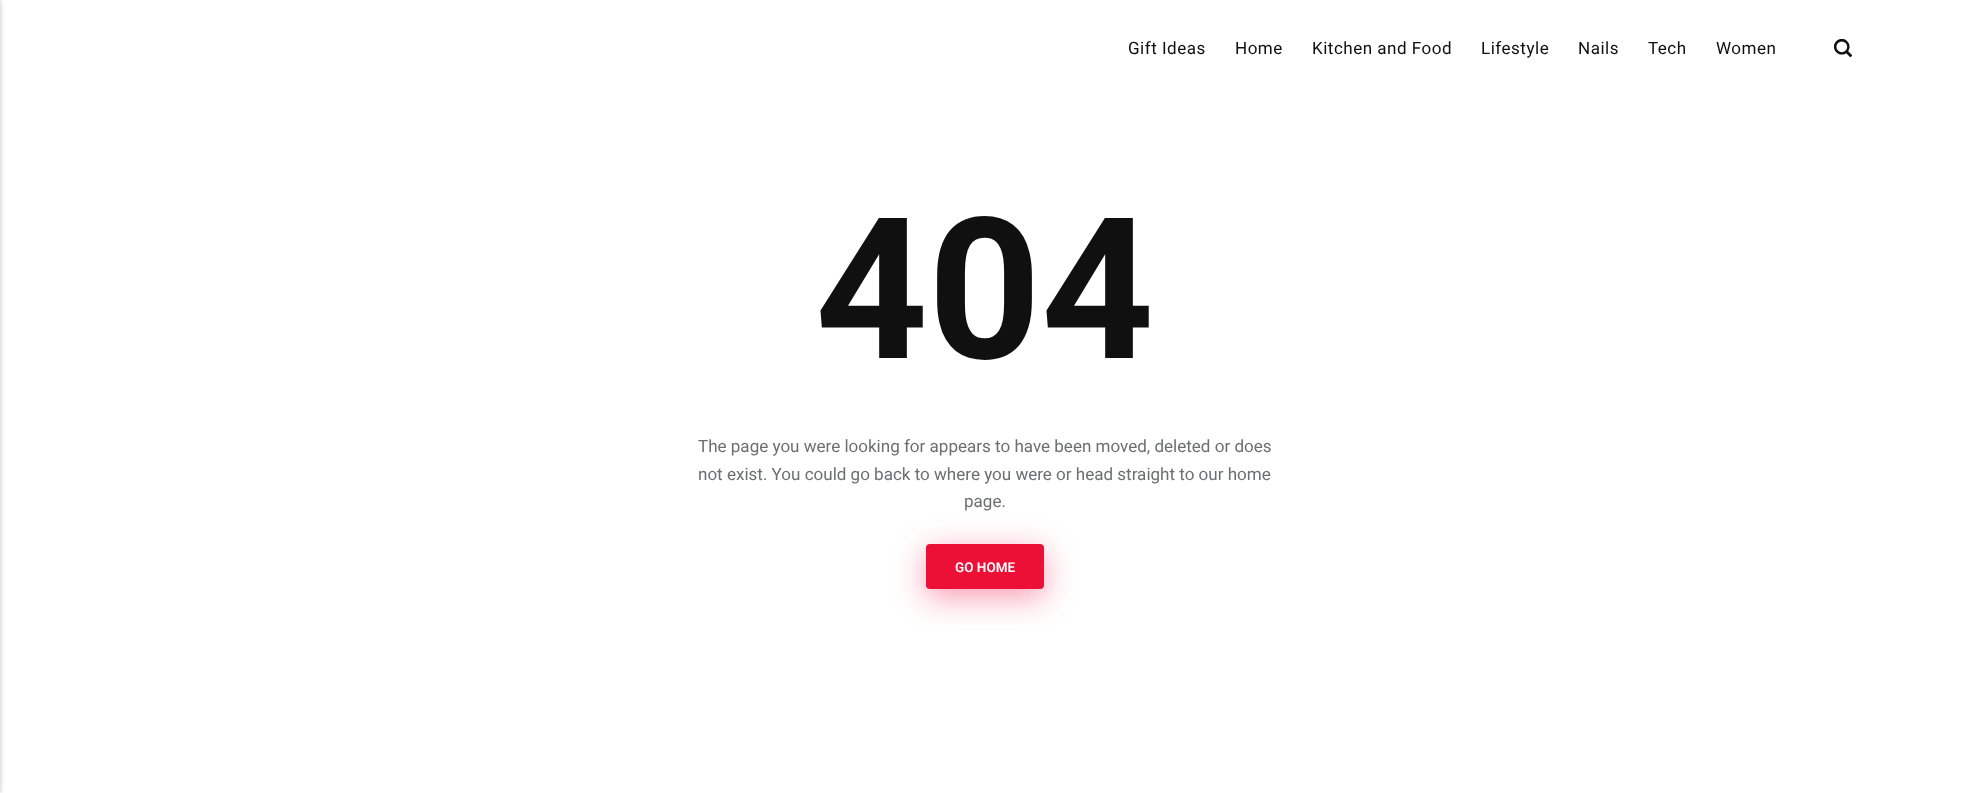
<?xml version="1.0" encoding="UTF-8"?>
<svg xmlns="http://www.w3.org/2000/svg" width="1970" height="793">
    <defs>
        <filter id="blur1" x="-50%" y="-200%" width="200%" height="500%"><feGaussianBlur stdDeviation="2.5"/></filter>
        <filter id="blur2" x="-50%" y="-200%" width="200%" height="500%"><feGaussianBlur stdDeviation="16"/></filter>
    </defs>
    <rect width="100%" height="100%" fill="#FFFFFF"/>
    <rect x="-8" y="0" width="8" height="793" fill="#000000" fill-opacity="0.25" filter="url(#blur1)"/>
    <text x="1128" y="54" font-family="Roboto" font-size="17.05" letter-spacing="0.5" fill="#101011">Gift Ideas</text>
    <text x="1235" y="54" font-family="Roboto" font-size="17.05" letter-spacing="0.5" fill="#101011">Home</text>
    <text x="1312" y="54" font-family="Roboto" font-size="17.05" letter-spacing="0.5" fill="#101011">Kitchen and Food</text>
    <text x="1481" y="54" font-family="Roboto" font-size="17.05" letter-spacing="0.5" fill="#101011">Lifestyle</text>
    <text x="1578" y="54" font-family="Roboto" font-size="17.05" letter-spacing="0.5" fill="#101011">Nails</text>
    <text x="1648" y="54" font-family="Roboto" font-size="17.05" letter-spacing="0.5" fill="#101011">Tech</text>
    <text x="1716" y="54" font-family="Roboto" font-size="17.05" letter-spacing="0.5" fill="#101011">Women</text>
    <image x="1834" y="39" width="18" height="18" href="img_01.png"/>
    <text x="815" y="358" font-family="Roboto" font-size="197" font-weight="700" fill="#101011">404</text>
    <text font-family="Roboto" font-size="17.05" fill="#6D6E6F">
        <tspan x="698" y="452">The page you were looking for appears to have been moved, deleted or does</tspan>
        <tspan x="698" y="480">not exist. You could go back to where you were or head straight to our home</tspan>
    </text>
    <text x="964" y="507" font-family="Roboto" font-size="17.05" fill="#6D6E6F">page.</text>
    <rect x="926" y="552" width="118" height="45" rx="4" fill="#EC1037" fill-opacity="0.4" filter="url(#blur2)"/>
    <rect x="926" y="544" width="118" height="45" rx="4" fill="#EC1037"/>
    <text x="955" y="572" font-family="Roboto" font-size="13.5" font-weight="600" fill="#FFFFFF">GO HOME</text>
</svg>
